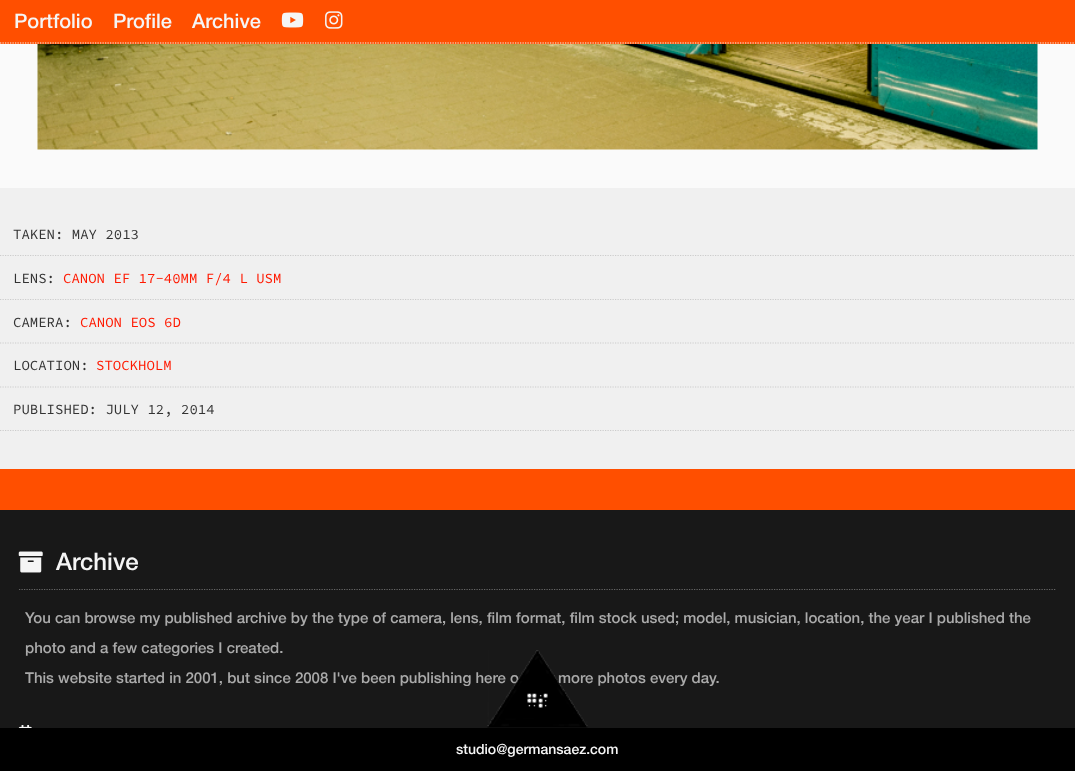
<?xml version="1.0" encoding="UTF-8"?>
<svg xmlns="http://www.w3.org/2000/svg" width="1075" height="771">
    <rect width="100%" height="100%" fill="#181818"/>
    <rect x="0" y="0" width="1075" height="44" fill="#FF4F00"/>
    <path d="M 0 43 H 1075" fill="none" stroke="#F5F5F5" stroke-width="1.2" stroke-dasharray="1.25 1.25"/>
    <text x="14" y="28" font-family="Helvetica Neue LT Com" font-size="20" font-weight="500" fill="#F5F5F5">Portfolio</text>
    <text x="113" y="28" font-family="Helvetica Neue LT Com" font-size="20" font-weight="500" fill="#F5F5F5">Profile</text>
    <text x="192" y="28" font-family="Helvetica Neue LT Com" font-size="20" font-weight="500" fill="#F5F5F5">Archive</text>
    <image x="281" y="12" width="23" height="16" href="img_01.png"/>
    <image x="325" y="11" width="18" height="18" href="img_02.png"/>
    <rect x="0" y="188" width="1075" height="281" fill="#F0F0F0"/>
    <rect x="0" y="44" width="1075" height="144" fill="#FAFAFA"/>
    <image x="37" y="44" width="1001" height="106" href="img_03.png"/>
    <path d="M 0 255.5 H 1075" fill="none" stroke="#CCCCCC" stroke-width="1.2" stroke-dasharray="1.25 1.25"/>
    <text x="13" y="239" font-family="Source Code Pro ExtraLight" font-size="14" fill="#333333">TAKEN: MAY 2013</text>
    <path d="M 0 299.5 H 1075" fill="none" stroke="#CCCCCC" stroke-width="1.2" stroke-dasharray="1.25 1.25"/>
    <text x="13" y="283" font-family="Source Code Pro ExtraLight" font-size="14" fill="#333333">LENS:</text>
    <text x="63" y="283" font-family="Source Code Pro ExtraLight" font-size="14" fill="#FF1900">CANON EF 17-40MM F/4 L USM</text>
    <path d="M 0 343 H 1075" fill="none" stroke="#CCCCCC" stroke-width="1.2" stroke-dasharray="1.25 1.25"/>
    <text x="13" y="327" font-family="Source Code Pro ExtraLight" font-size="14" fill="#333333">CAMERA:</text>
    <text x="80" y="327" font-family="Source Code Pro ExtraLight" font-size="14" fill="#FF1900">CANON EOS 6D</text>
    <path d="M 0 387 H 1075" fill="none" stroke="#CCCCCC" stroke-width="1.2" stroke-dasharray="1.25 1.25"/>
    <text x="13" y="370" font-family="Source Code Pro ExtraLight" font-size="14" fill="#333333">LOCATION:</text>
    <text x="96" y="370" font-family="Source Code Pro ExtraLight" font-size="14" fill="#FF1900">STOCKHOLM</text>
    <path d="M 0 430.5 H 1075" fill="none" stroke="#CCCCCC" stroke-width="1.2" stroke-dasharray="1.25 1.25"/>
    <text x="13" y="414" font-family="Source Code Pro ExtraLight" font-size="14" fill="#333333">PUBLISHED: JULY 12, 2014</text>
    <rect x="0" y="469" width="1075" height="41" fill="#FF4F00"/>
    <path d="M 19 589.5 H 1056" fill="none" stroke="#666666" stroke-width="1.2" stroke-dasharray="1.25 1.25"/>
    <image x="18" y="551" width="25" height="22" href="img_04.png"/>
    <text x="56" y="570" font-family="Helvetica Neue LT Com" font-size="24" font-weight="500" fill="#F5F5F5">Archive</text>
    <text x="25" y="623" font-family="Helvetica Neue LT Com" font-size="15" font-weight="500" fill="#AAAAAA">You can browse my published archive by the type of camera, lens, film format, film stock used; model, musician, location, the year I published the</text>
    <text x="25" y="653" font-family="Helvetica Neue LT Com" font-size="15" font-weight="500" fill="#AAAAAA">photo and a few categories I created.</text>
    <text x="25" y="683" font-family="Helvetica Neue LT Com" font-size="15" font-weight="500" fill="#AAAAAA">This website started in 2001, but since 2008 I've been publishing here o</text>
    <text x="558" y="683" font-family="Helvetica Neue LT Com" font-size="15" font-weight="500" fill="#AAAAAA">more photos every day.</text>
    <image x="18" y="725" width="14" height="3" href="img_05.png"/>
    <image x="487" y="650" width="101" height="78" href="img_06.png"/>
    <rect x="0" y="728" width="1075" height="43" fill="#000000"/>
    <text x="456" y="754" font-family="Helvetica Neue LT Com" font-size="14" font-weight="500" fill="#F5F5F5">studio@germansaez.com</text>
</svg>
